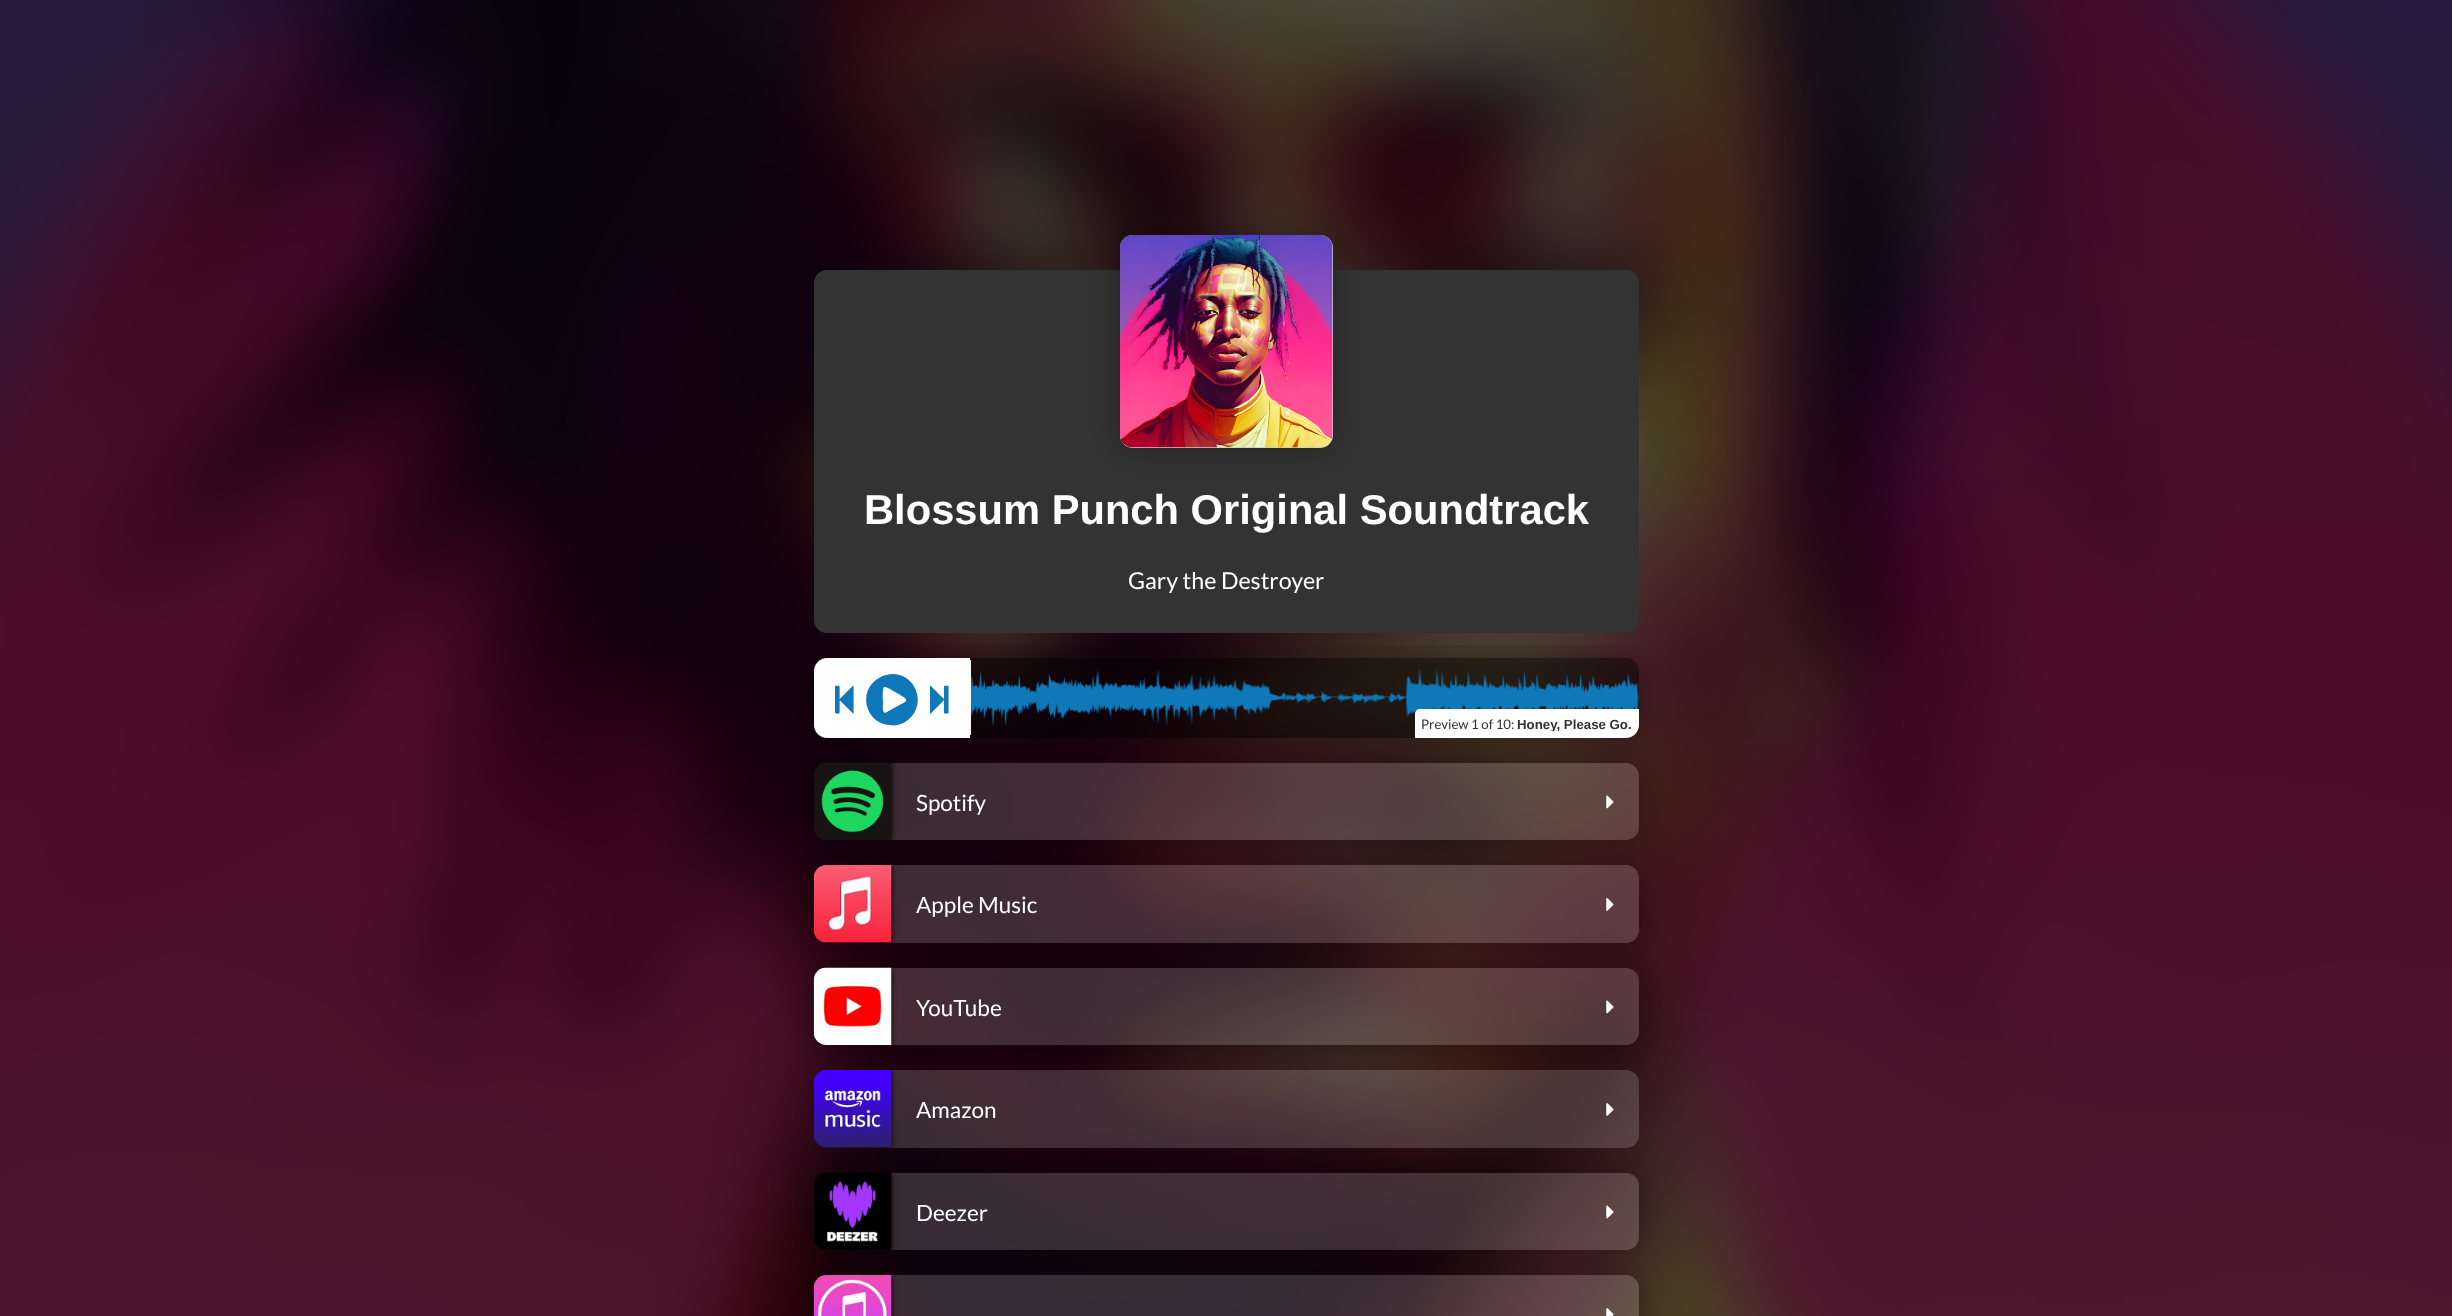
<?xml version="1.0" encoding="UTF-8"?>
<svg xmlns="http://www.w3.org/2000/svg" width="2452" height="1316">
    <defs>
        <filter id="blur1" x="-50%" y="-200%" width="200%" height="500%"><feGaussianBlur stdDeviation="15.5"/></filter>
        <clipPath id="clip1"><rect x="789" y="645" width="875" height="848"/></clipPath>
        <clipPath id="clip2"><path d="M 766 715 H 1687 V 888 H 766 Z M 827 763 H 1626 C 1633 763 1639 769 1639 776 V 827 C 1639 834 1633 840 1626 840 H 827 C 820 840 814 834 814 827 V 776 C 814 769 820 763 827 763 Z" clip-rule="evenodd"/></clipPath>
        <clipPath id="clip3"><rect x="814" y="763" width="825" height="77" rx="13"/></clipPath>
        <filter id="blur2" x="-50%" y="-200%" width="200%" height="500%"><feGaussianBlur stdDeviation="3"/></filter>
        <clipPath id="clip4"><path d="M 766 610 H 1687 V 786 H 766 Z M 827 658 H 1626 C 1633 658 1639 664 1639 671 V 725 C 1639 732 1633 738 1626 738 H 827 C 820 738 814 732 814 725 V 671 C 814 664 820 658 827 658 Z" clip-rule="evenodd"/></clipPath>
        <clipPath id="clip5"><rect x="1421" y="715" width="212" height="16"/></clipPath>
        <clipPath id="clip6"><path d="M 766 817 H 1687 V 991 H 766 Z M 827 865 H 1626 C 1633 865 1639 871 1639 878 V 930 C 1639 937 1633 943 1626 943 H 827 C 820 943 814 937 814 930 V 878 C 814 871 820 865 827 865 Z" clip-rule="evenodd"/></clipPath>
        <clipPath id="clip7"><rect x="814" y="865" width="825" height="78" rx="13"/></clipPath>
        <clipPath id="clip8"><path d="M 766 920 H 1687 V 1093 H 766 Z M 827 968 H 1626 C 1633 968 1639 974 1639 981 V 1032 C 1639 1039 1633 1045 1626 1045 H 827 C 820 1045 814 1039 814 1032 V 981 C 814 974 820 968 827 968 Z" clip-rule="evenodd"/></clipPath>
        <clipPath id="clip9"><rect x="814" y="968" width="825" height="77" rx="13"/></clipPath>
        <clipPath id="clip10"><rect x="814" y="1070" width="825" height="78" rx="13"/></clipPath>
        <clipPath id="clip11"><path d="M 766 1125 H 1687 V 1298 H 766 Z M 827 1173 H 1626 C 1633 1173 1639 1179 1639 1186 V 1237 C 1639 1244 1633 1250 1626 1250 H 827 C 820 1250 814 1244 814 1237 V 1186 C 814 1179 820 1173 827 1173 Z" clip-rule="evenodd"/></clipPath>
        <clipPath id="clip12"><rect x="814" y="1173" width="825" height="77" rx="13"/></clipPath>
        <clipPath id="clip13"><path d="M 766 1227 H 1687 V 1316 H 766 Z M 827 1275 H 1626 C 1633 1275 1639 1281 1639 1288 V 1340 C 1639 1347 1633 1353 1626 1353 H 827 C 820 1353 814 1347 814 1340 V 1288 C 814 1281 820 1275 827 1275 Z" clip-rule="evenodd"/></clipPath>
        <clipPath id="clip14"><rect x="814" y="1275" width="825" height="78" rx="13"/></clipPath>
    </defs>
    <rect width="100%" height="100%" fill="#000000"/>
    <image x="0" y="0" width="2452" height="1316" href="img_01.png"/>
    <rect x="814" y="270" width="825" height="363" rx="13" fill="#333333"/>
    <rect x="1120" y="235" width="213" height="213" rx="13" fill="#000000" fill-opacity="0.35" filter="url(#blur1)"/>
    <rect x="1120" y="235" width="213" height="213" rx="13" fill="#CCCCCC"/>
    <image x="1120" y="235" width="213" height="213" href="img_02.png"/>
    <text x="864" y="524" font-family="Liberation Sans" font-size="41.7" font-weight="700" fill="#FFFFFF">Blossum Punch Original Soundtrack</text>
    <text x="1128" y="589" font-family="Lato" font-size="23.25" fill="#FFFFFF">Gary the Destroyer</text>
    <g clip-path="url(#clip1)">
        <g clip-path="url(#clip2)">
            <rect x="814" y="763" width="825" height="77" rx="13" fill="#000000" fill-opacity="0.35" filter="url(#blur1)"/>
        </g>
    </g>
    <rect x="814" y="763" width="825" height="77" rx="13" fill="#FFFFFF" fill-opacity="0.17"/>
    <g clip-path="url(#clip3)">
        <rect x="814" y="763" width="77" height="77" fill="#000000" filter="url(#blur2)"/>
    </g>
    <image x="814" y="762" width="78" height="78" href="img_06.png"/>
    <g clip-path="url(#clip1)">
        <g clip-path="url(#clip4)">
            <rect x="814" y="658" width="825" height="80" rx="13" fill="#000000" fill-opacity="0.35" filter="url(#blur1)"/>
        </g>
    </g>
    <path d="M 827 658 H 970 V 738 H 827 C 820 738 814 732 814 725 V 671 C 814 664 820 658 827 658 Z" fill="#FFFFFF"/>
    <image x="835" y="685" width="19" height="29" href="img_03.png"/>
    <path d="M 879 678 C 883 675 889 674 894 674 C 919 676 927 709 905 722 C 900 725 895 726 890 725 C 865 724 857 690 879 678 Z M 905 702 C 910 699 899 695 899 694 C 896 693 887 686 884 687 C 882 689 883 701 883 703 C 883 705 882 712 885 713 Z" fill="#0F78B8"/>
    <image x="930" y="685" width="19" height="29" href="img_04.png"/>
    <path d="M 970 658 H 1626 C 1633 658 1639 664 1639 671 V 725 C 1639 732 1633 738 1626 738 H 970 Z" fill="#000000" fill-opacity="0.5"/>
    <rect x="970" y="660" width="1" height="75" fill="#FFFFFF"/>
    <image x="971" y="667" width="668" height="60" href="img_05.png"/>
    <path d="M 1420 709 H 1639 V 725 C 1639 732 1633 738 1626 738 H 1415 V 714 C 1415 711 1417 709 1420 709 Z" fill="#FFFFFF"/>
    <text x="1421" y="729" font-family="Lato" font-size="13.25" fill="#333333">Preview 1 of 10:</text>
    <g clip-path="url(#clip5)">
        <text x="1517" y="729" font-family="Liberation Sans" font-size="13.25" font-weight="700" fill="#333333">Honey, Please Go.</text>
    </g>
    <text x="916" y="811" font-family="Lato" font-size="22.5" fill="#FFFFFF">Spotify</text>
    <image x="1606" y="795" width="8" height="14" href="img_07.png"/>
    <g clip-path="url(#clip1)">
        <g clip-path="url(#clip6)">
            <rect x="814" y="865" width="825" height="78" rx="13" fill="#000000" fill-opacity="0.35" filter="url(#blur1)"/>
        </g>
    </g>
    <rect x="814" y="865" width="825" height="78" rx="13" fill="#FFFFFF" fill-opacity="0.17"/>
    <g clip-path="url(#clip7)">
        <rect x="814" y="865" width="77" height="78" fill="#000000" filter="url(#blur2)"/>
    </g>
    <image x="813" y="865" width="79" height="78" href="img_08.png"/>
    <text x="916" y="913" font-family="Lato" font-size="22.5" fill="#FFFFFF">Apple Music</text>
    <image x="1606" y="898" width="8" height="13" href="img_09.png"/>
    <g clip-path="url(#clip1)">
        <g clip-path="url(#clip8)">
            <rect x="814" y="968" width="825" height="77" rx="13" fill="#000000" fill-opacity="0.35" filter="url(#blur1)"/>
        </g>
    </g>
    <rect x="814" y="968" width="825" height="77" rx="13" fill="#FFFFFF" fill-opacity="0.17"/>
    <g clip-path="url(#clip9)">
        <rect x="814" y="968" width="77" height="77" fill="#000000" filter="url(#blur2)"/>
    </g>
    <image x="813" y="967" width="79" height="78" href="img_10.png"/>
    <text x="916" y="1016" font-family="Lato" font-size="22.5" fill="#FFFFFF">YouTube</text>
    <image x="1606" y="1000" width="8" height="14" href="img_11.png"/>
    <rect x="814" y="1070" width="825" height="78" rx="13" fill="#FFFFFF" fill-opacity="0.17"/>
    <g clip-path="url(#clip10)">
        <rect x="814" y="1070" width="77" height="78" fill="#000000" filter="url(#blur2)"/>
    </g>
    <image x="813" y="1070" width="79" height="78" href="img_12.png"/>
    <text x="916" y="1118" font-family="Lato" font-size="22.5" fill="#FFFFFF">Amazon</text>
    <image x="1606" y="1103" width="8" height="13" href="img_13.png"/>
    <g clip-path="url(#clip1)">
        <g clip-path="url(#clip11)">
            <rect x="814" y="1173" width="825" height="77" rx="13" fill="#000000" fill-opacity="0.35" filter="url(#blur1)"/>
        </g>
    </g>
    <rect x="814" y="1173" width="825" height="77" rx="13" fill="#FFFFFF" fill-opacity="0.17"/>
    <g clip-path="url(#clip12)">
        <rect x="814" y="1173" width="77" height="77" fill="#000000" filter="url(#blur2)"/>
    </g>
    <image x="814" y="1172" width="78" height="78" href="img_14.png"/>
    <text x="916" y="1221" font-family="Lato" font-size="22.5" fill="#FFFFFF">Deezer</text>
    <image x="1606" y="1205" width="8" height="14" href="img_15.png"/>
    <g clip-path="url(#clip1)">
        <g clip-path="url(#clip13)">
            <rect x="814" y="1275" width="825" height="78" rx="13" fill="#000000" fill-opacity="0.35" filter="url(#blur1)"/>
        </g>
    </g>
    <rect x="814" y="1275" width="825" height="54" rx="13" fill="#FFFFFF" fill-opacity="0.17"/>
    <g clip-path="url(#clip14)">
        <rect x="814" y="1275" width="77" height="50" fill="#000000" filter="url(#blur2)"/>
    </g>
    <image x="813" y="1275" width="79" height="41" href="img_16.png"/>
    <image x="1606" y="1308" width="8" height="8" href="img_17.png"/>
</svg>
